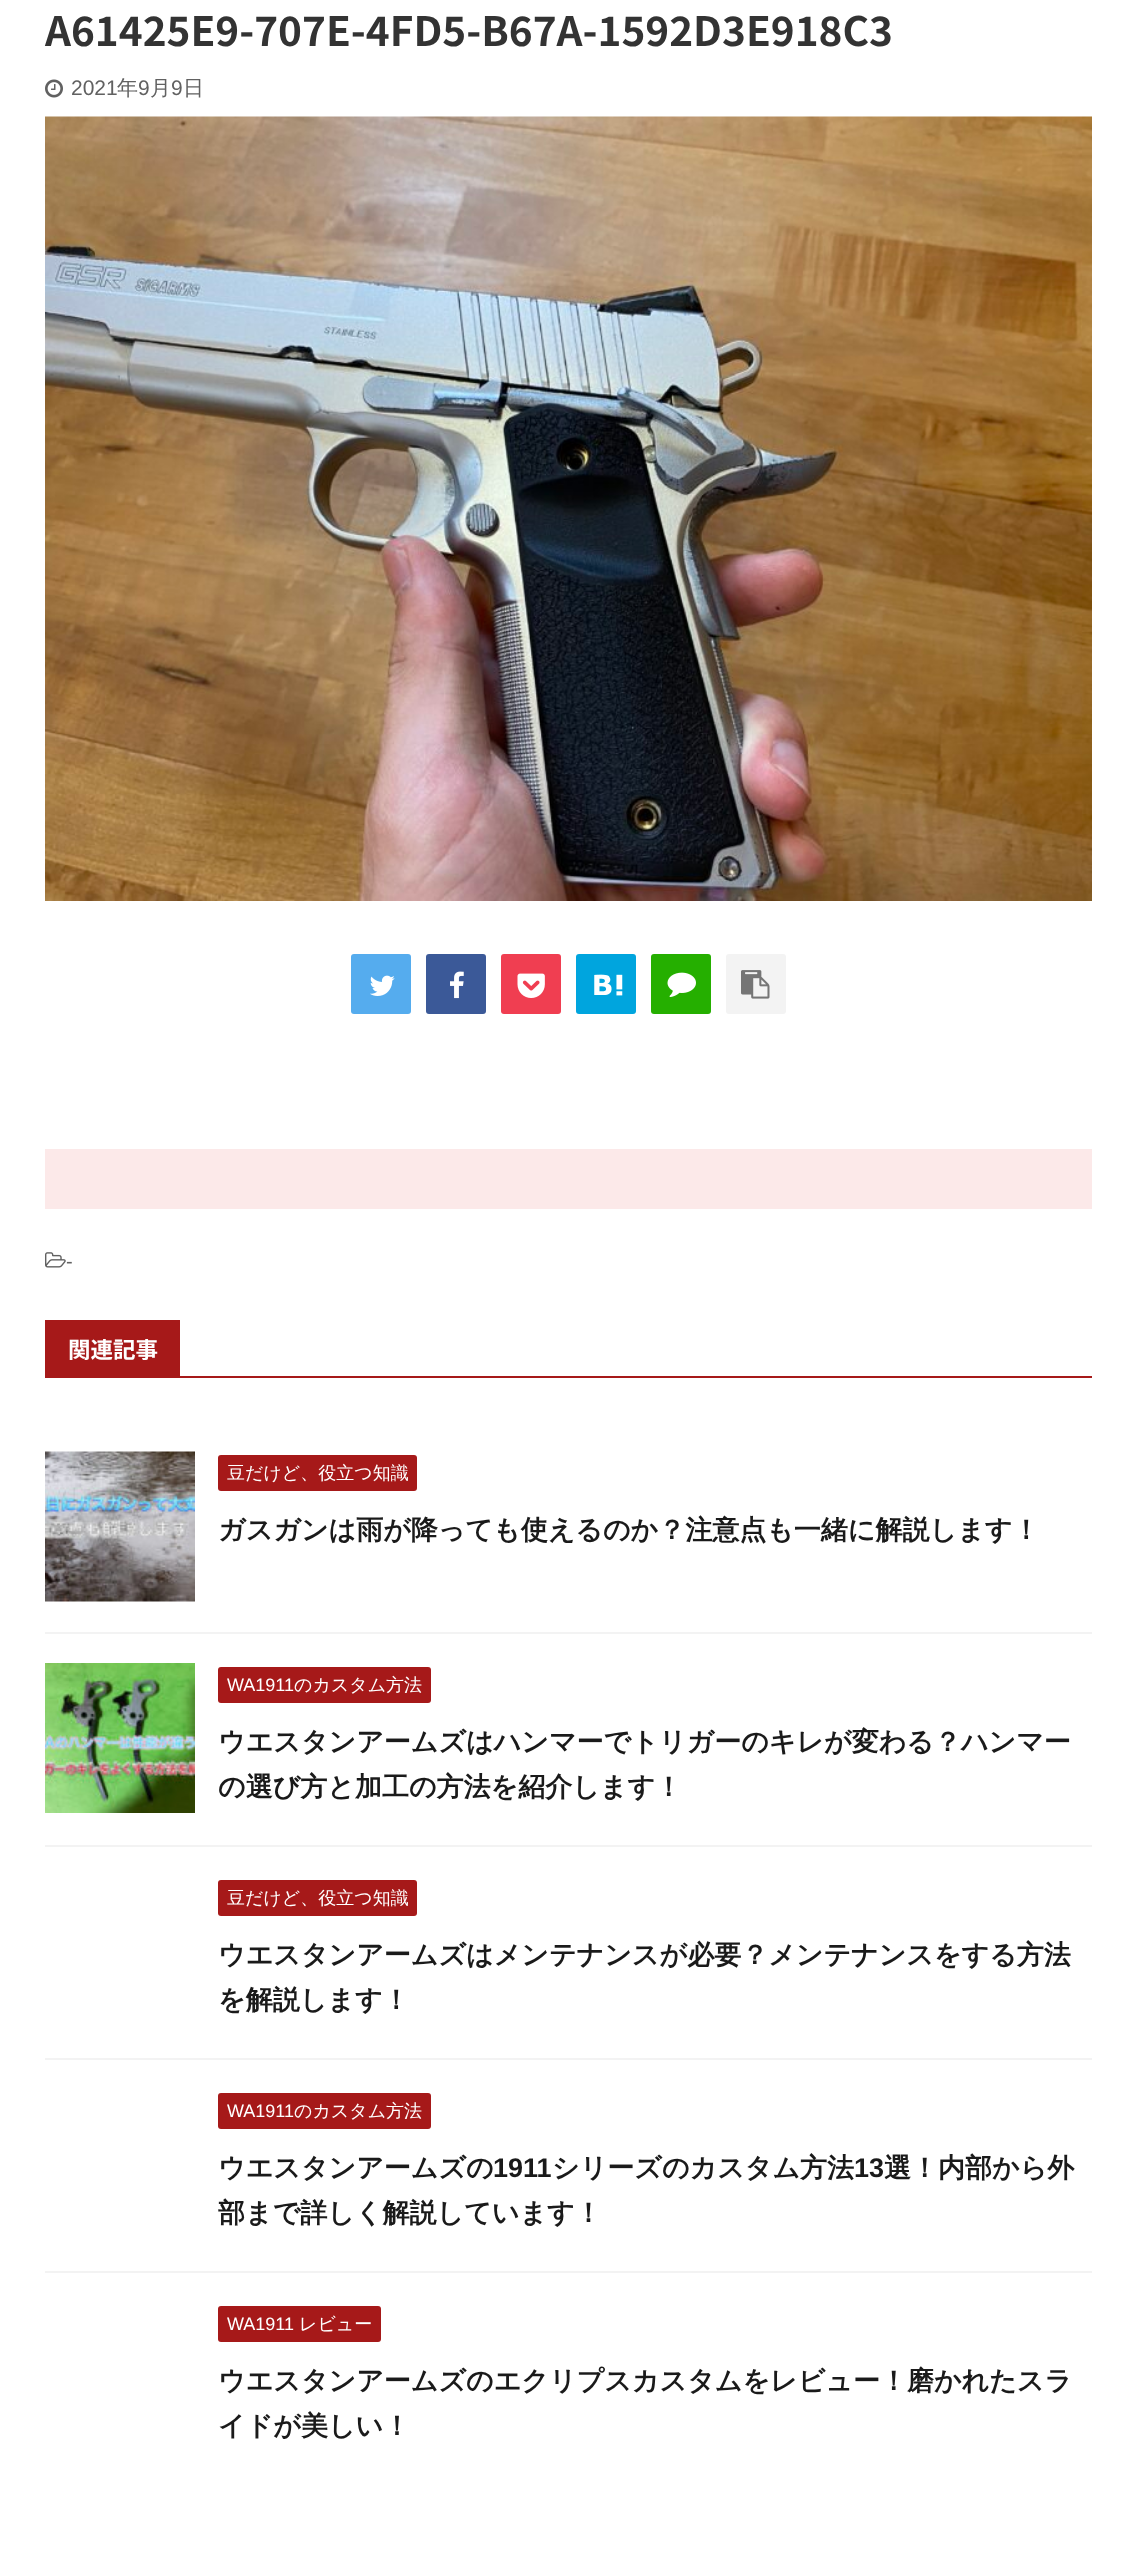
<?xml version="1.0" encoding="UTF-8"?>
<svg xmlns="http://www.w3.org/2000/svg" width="1136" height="2566">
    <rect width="100%" height="100%" fill="#FFFFFF"/>
    <text x="45" y="46" font-family="Noto Sans JP" font-size="40.5" font-weight="700" fill="#333333">A61425E9-707E-4FD5-B67A-1592D3E918C3</text>
    <image x="45" y="79" width="18" height="19" href="img_01.png"/>
    <text x="71" y="95" font-family="Liberation Sans" font-size="21" fill="#616161">2021</text>
    <text x="117" y="95" font-family="WenQuanYi Zen Hei" font-size="21" font-weight="500" fill="#616161">年</text>
    <text x="138" y="95" font-family="Liberation Sans" font-size="21" fill="#616161">9</text>
    <text x="150" y="95" font-family="WenQuanYi Zen Hei" font-size="21" font-weight="500" fill="#616161">月</text>
    <text x="171" y="95" font-family="Liberation Sans" font-size="21" fill="#616161">9</text>
    <text x="183" y="95" font-family="WenQuanYi Zen Hei" font-size="21" font-weight="500" fill="#616161">日</text>
    <image x="45" y="116" width="1047" height="785" href="img_02.png"/>
    <rect x="351" y="954" width="60" height="60" rx="3" fill="#55ACEE"/>
    <image x="370" y="975" width="25" height="21" href="img_03.png"/>
    <rect x="426" y="954" width="60" height="60" rx="3" fill="#3B5998"/>
    <image x="450" y="971" width="14" height="28" href="img_04.png"/>
    <rect x="501" y="954" width="60" height="60" rx="3" fill="#F03E51"/>
    <image x="517" y="973" width="28" height="25" href="img_05.png"/>
    <rect x="576" y="954" width="60" height="60" rx="3" fill="#00A5DE"/>
    <image x="594" y="974" width="29" height="22" href="img_06.png"/>
    <rect x="651" y="954" width="60" height="60" rx="3" fill="#25AF00"/>
    <image x="667" y="972" width="29" height="25" href="img_07.png"/>
    <rect x="726" y="954" width="60" height="60" rx="3" fill="#F3F3F3"/>
    <image x="741" y="970" width="29" height="29" href="img_08.png"/>
    <rect x="45" y="1149" width="1047" height="60" fill="#FCE9E9"/>
    <image x="45" y="1252" width="21" height="16" href="img_09.png"/>
    <text x="66" y="1268" font-family="Liberation Sans" font-size="20" fill="#616161">-</text>
    <rect x="45" y="1376" width="1047" height="2" fill="#A61919"/>
    <rect x="45" y="1320" width="135" height="56" fill="#A61919"/>
    <text x="68" y="1358" font-family="Noto Sans JP" font-size="22.5" font-weight="700" fill="#FFFFFF">関連記事</text>
    <rect x="45" y="1632" width="1047" height="2" fill="#F3F3F3"/>
    <image x="45" y="1451" width="150" height="151" href="img_10.png"/>
    <rect x="218" y="1455" width="199" height="36" rx="3" fill="#A61919"/>
    <text x="227" y="1479" font-family="WenQuanYi Zen Hei" font-size="18" font-weight="500" fill="#FFFFFF">豆だけど、役立つ知識</text>
    <text x="218" y="1539" font-family="WenQuanYi Zen Hei" font-size="27" font-weight="700" fill="#1A1A1A">ガスガンは雨が降っても使えるのか？注意点も一緒に解説します！</text>
    <rect x="45" y="1845" width="1047" height="2" fill="#F3F3F3"/>
    <image x="45" y="1663" width="150" height="150" href="img_11.png"/>
    <rect x="218" y="1667" width="213" height="36" rx="3" fill="#A61919"/>
    <text x="227" y="1691" font-family="Liberation Sans" font-size="18" fill="#FFFFFF">WA1911</text>
    <text x="294" y="1691" font-family="WenQuanYi Zen Hei" font-size="18" font-weight="500" fill="#FFFFFF">のカスタム方法</text>
    <text font-family="WenQuanYi Zen Hei" font-size="27" font-weight="700" fill="#1A1A1A">
        <tspan x="218" y="1751">ウエスタンアームズはハンマーでトリガーのキレが変わる？ハンマー</tspan>
        <tspan x="218" y="1796">の選び方と加工の方法を紹介します！</tspan>
    </text>
    <rect x="45" y="2058" width="1047" height="2" fill="#F3F3F3"/>
    <rect x="218" y="1880" width="199" height="36" rx="3" fill="#A61919"/>
    <text x="227" y="1904" font-family="WenQuanYi Zen Hei" font-size="18" font-weight="500" fill="#FFFFFF">豆だけど、役立つ知識</text>
    <text font-family="WenQuanYi Zen Hei" font-size="27" font-weight="700" fill="#1A1A1A">
        <tspan x="218" y="1964">ウエスタンアームズはメンテナンスが必要？メンテナンスをする方法</tspan>
        <tspan x="218" y="2009">を解説します！</tspan>
    </text>
    <rect x="45" y="2271" width="1047" height="2" fill="#F3F3F3"/>
    <rect x="218" y="2093" width="213" height="36" rx="3" fill="#A61919"/>
    <text x="227" y="2117" font-family="Liberation Sans" font-size="18" fill="#FFFFFF">WA1911</text>
    <text x="294" y="2117" font-family="WenQuanYi Zen Hei" font-size="18" font-weight="500" fill="#FFFFFF">のカスタム方法</text>
    <text x="218" y="2177" font-family="WenQuanYi Zen Hei" font-size="27" font-weight="700" fill="#1A1A1A">ウエスタンアームズの</text>
    <text x="493" y="2177" font-family="Liberation Sans" font-size="27" font-weight="700" fill="#1A1A1A">1911</text>
    <text x="552" y="2177" font-family="WenQuanYi Zen Hei" font-size="27" font-weight="700" fill="#1A1A1A">シリーズのカスタム方法</text>
    <text x="854" y="2177" font-family="Liberation Sans" font-size="27" font-weight="700" fill="#1A1A1A">13</text>
    <text x="884" y="2177" font-family="WenQuanYi Zen Hei" font-size="27" font-weight="700" fill="#1A1A1A">選！内部から外</text>
    <text x="218" y="2222" font-family="WenQuanYi Zen Hei" font-size="27" font-weight="700" fill="#1A1A1A">部まで詳しく解説しています！</text>
    <rect x="218" y="2306" width="163" height="36" rx="3" fill="#A61919"/>
    <text x="227" y="2330" font-family="Liberation Sans" font-size="18" fill="#FFFFFF">WA1911</text>
    <text x="299" y="2330" font-family="WenQuanYi Zen Hei" font-size="18" font-weight="500" fill="#FFFFFF">レビュー</text>
    <text font-family="WenQuanYi Zen Hei" font-size="27" font-weight="700" fill="#1A1A1A">
        <tspan x="218" y="2390">ウエスタンアームズのエクリプスカスタムをレビュー！磨かれたスラ</tspan>
        <tspan x="218" y="2435">イドが美しい！</tspan>
    </text>
</svg>
